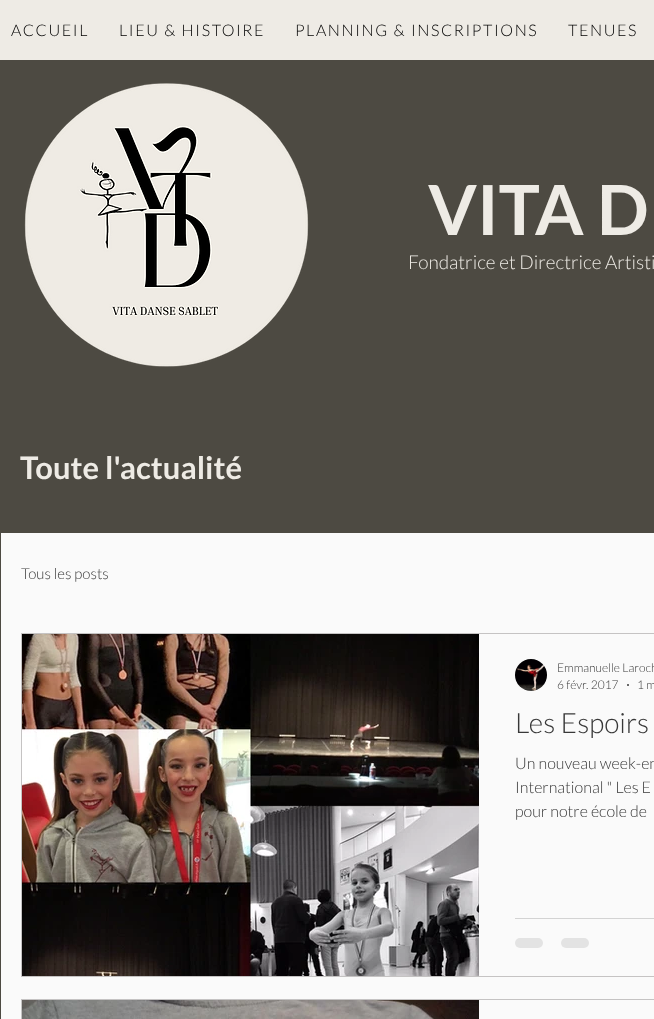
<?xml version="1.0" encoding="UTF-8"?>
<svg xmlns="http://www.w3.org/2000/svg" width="654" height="1019">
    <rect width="100%" height="100%" fill="#4D4A42"/>
    <rect x="0" y="0" width="654" height="60" fill="#EEEBE5"/>
    <text x="11" y="36" font-family="Lato" font-size="16" font-weight="300" letter-spacing="1.6" fill="#000000">ACCUEIL</text>
    <text x="119" y="36" font-family="Lato" font-size="16" font-weight="300" letter-spacing="1.6" fill="#000000">LIEU &amp; HISTOIRE</text>
    <text x="295" y="36" font-family="Lato" font-size="16" font-weight="300" letter-spacing="1.6" fill="#000000">PLANNING &amp; INSCRIPTIONS</text>
    <text x="568" y="36" font-family="Lato" font-size="16" font-weight="300" letter-spacing="1.6" fill="#000000">TENUES</text>
    <image x="24" y="83" width="285" height="284" href="img_01.png"/>
    <text x="428" y="235" font-family="Lato" font-size="69" font-weight="700" fill="#EEEBE5">VITA D</text>
    <text x="408" y="269" font-family="Lato" font-size="19" font-weight="300" fill="#EEEBE5">Fondatrice et Directrice Artisti</text>
    <text x="20" y="479" font-family="Lato" font-size="31" font-weight="700" fill="#EEEBE5">Toute l'actualité</text>
    <rect x="1" y="533" width="653" height="486" fill="#FAFAFA"/>
    <text x="21" y="579" font-family="Lato" font-size="15" font-weight="300" fill="#383838">Tous les posts</text>
    <rect x="21.5" y="633.5" width="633" height="343" fill="none" stroke="#C5C3C3"/>
    <image x="22" y="634" width="457" height="342" href="img_02.png"/>
    <image x="515" y="659" width="32" height="32" href="img_03.png"/>
    <text font-family="Lato" font-size="12" font-weight="300" fill="#383838">
        <tspan x="557" y="672">Emmanuelle Laroch</tspan>
        <tspan x="557" y="689">6 févr. 2017</tspan>
    </text>
    <circle cx="628" cy="685" r="1" fill="#383838"/>
    <text x="637" y="689" font-family="Lato" font-size="12" font-weight="300" fill="#383838">1 m</text>
    <text x="515" y="733" font-family="Lato" font-size="28" font-weight="300" fill="#383838">Les Espoirs</text>
    <text font-family="Lato" font-size="16" font-weight="300" fill="#383838">
        <tspan x="515" y="769">Un nouveau week-en</tspan>
        <tspan x="515" y="793">International " Les E</tspan>
        <tspan x="515" y="817">pour notre école de</tspan>
    </text>
    <rect x="515" y="918" width="139" height="1" fill="#D3D3D3"/>
    <rect x="515" y="938" width="28" height="10" rx="5" fill="#E3E3E3"/>
    <rect x="561" y="938" width="28" height="10" rx="5" fill="#E3E3E3"/>
    <rect x="21.5" y="999.5" width="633" height="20" fill="none" stroke="#C5C3C3"/>
    <image x="22" y="1000" width="457" height="19" href="img_04.png"/>
</svg>
